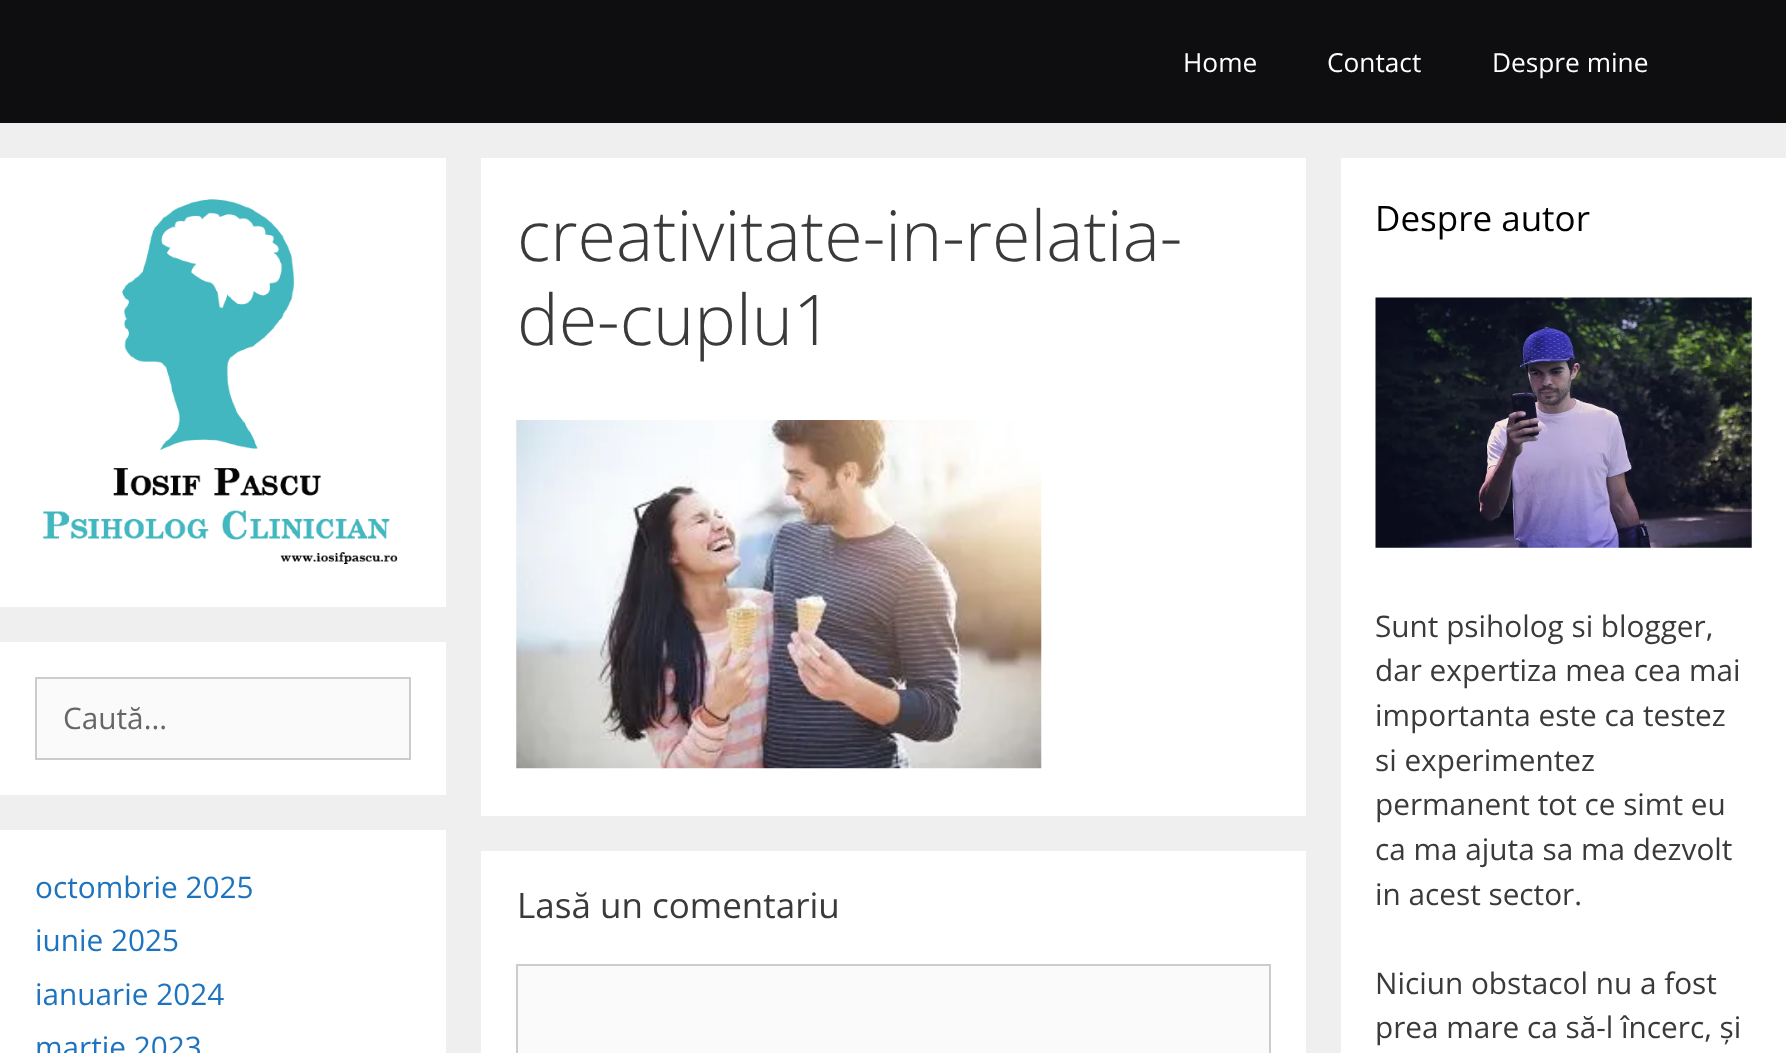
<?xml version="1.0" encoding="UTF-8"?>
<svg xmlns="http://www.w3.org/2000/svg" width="1786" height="1053">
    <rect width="100%" height="100%" fill="#EFEFEF"/>
    <rect x="0" y="0" width="1786" height="123" fill="#0E0D10"/>
    <text x="1183" y="72" font-family="Open Sans" font-size="26.25" fill="#FFFFFF">Home</text>
    <text x="1327" y="72" font-family="Open Sans" font-size="26.25" fill="#FFFFFF">Contact</text>
    <text x="1492" y="72" font-family="Open Sans" font-size="26.25" fill="#FFFFFF">Despre mine</text>
    <rect x="0" y="158" width="446" height="449" fill="#FFFFFF"/>
    <image x="43" y="199" width="355" height="365" href="img_01.png"/>
    <rect x="0" y="642" width="446" height="153" fill="#FFFFFF"/>
    <rect x="36" y="678" width="374" height="81" fill="#FAFAFA" stroke="#CCCCCC" stroke-width="2"/>
    <text x="63" y="729" font-family="Open Sans" font-size="29.75" fill="#666666">Caută...</text>
    <rect x="0" y="830" width="446" height="223" fill="#FFFFFF"/>
    <text font-family="Open Sans" font-size="29.75" fill="#1E73BE">
        <tspan x="35" y="898">octombrie 2025</tspan>
        <tspan x="35" y="951">iunie 2025</tspan>
        <tspan x="35" y="1005">ianuarie 2024</tspan>
        <tspan x="35" y="1058">martie 2023</tspan>
    </text>
    <rect x="481" y="158" width="825" height="658" fill="#FFFFFF"/>
    <text font-family="Open Sans" font-size="70" font-weight="300" fill="#3A3A3A">
        <tspan x="517" y="261">creativitate-in-relatia-</tspan>
        <tspan x="517" y="345">de-cuplu1</tspan>
    </text>
    <image x="516" y="420" width="526" height="349" href="img_02.png"/>
    <rect x="481" y="851" width="825" height="202" fill="#FFFFFF"/>
    <text x="517" y="918" font-family="Open Sans" font-size="35" fill="#3A3A3A">Lasă un comentariu</text>
    <rect x="517" y="965" width="753" height="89" fill="#FAFAFA" stroke="#CCCCCC" stroke-width="2"/>
    <rect x="1341" y="158" width="445" height="895" fill="#FFFFFF"/>
    <text x="1375" y="231" font-family="Open Sans" font-size="35" fill="#000000">Despre autor</text>
    <image x="1375" y="297" width="377" height="251" href="img_03.png"/>
    <text font-family="Open Sans" font-size="29.75" fill="#3A3A3A">
        <tspan x="1375" y="637">Sunt psiholog si blogger,</tspan>
        <tspan x="1375" y="681">dar expertiza mea cea mai</tspan>
        <tspan x="1375" y="726">importanta este ca testez</tspan>
        <tspan x="1375" y="771">si experimentez</tspan>
        <tspan x="1375" y="815">permanent tot ce simt eu</tspan>
        <tspan x="1375" y="860">ca ma ajuta sa ma dezvolt</tspan>
        <tspan x="1375" y="905">in acest sector.</tspan>
    </text>
    <text font-family="Open Sans" font-size="29.75" fill="#3A3A3A">
        <tspan x="1375" y="994">Niciun obstacol nu a fost</tspan>
        <tspan x="1375" y="1038">prea mare ca să-l încerc, și</tspan>
    </text>
</svg>
